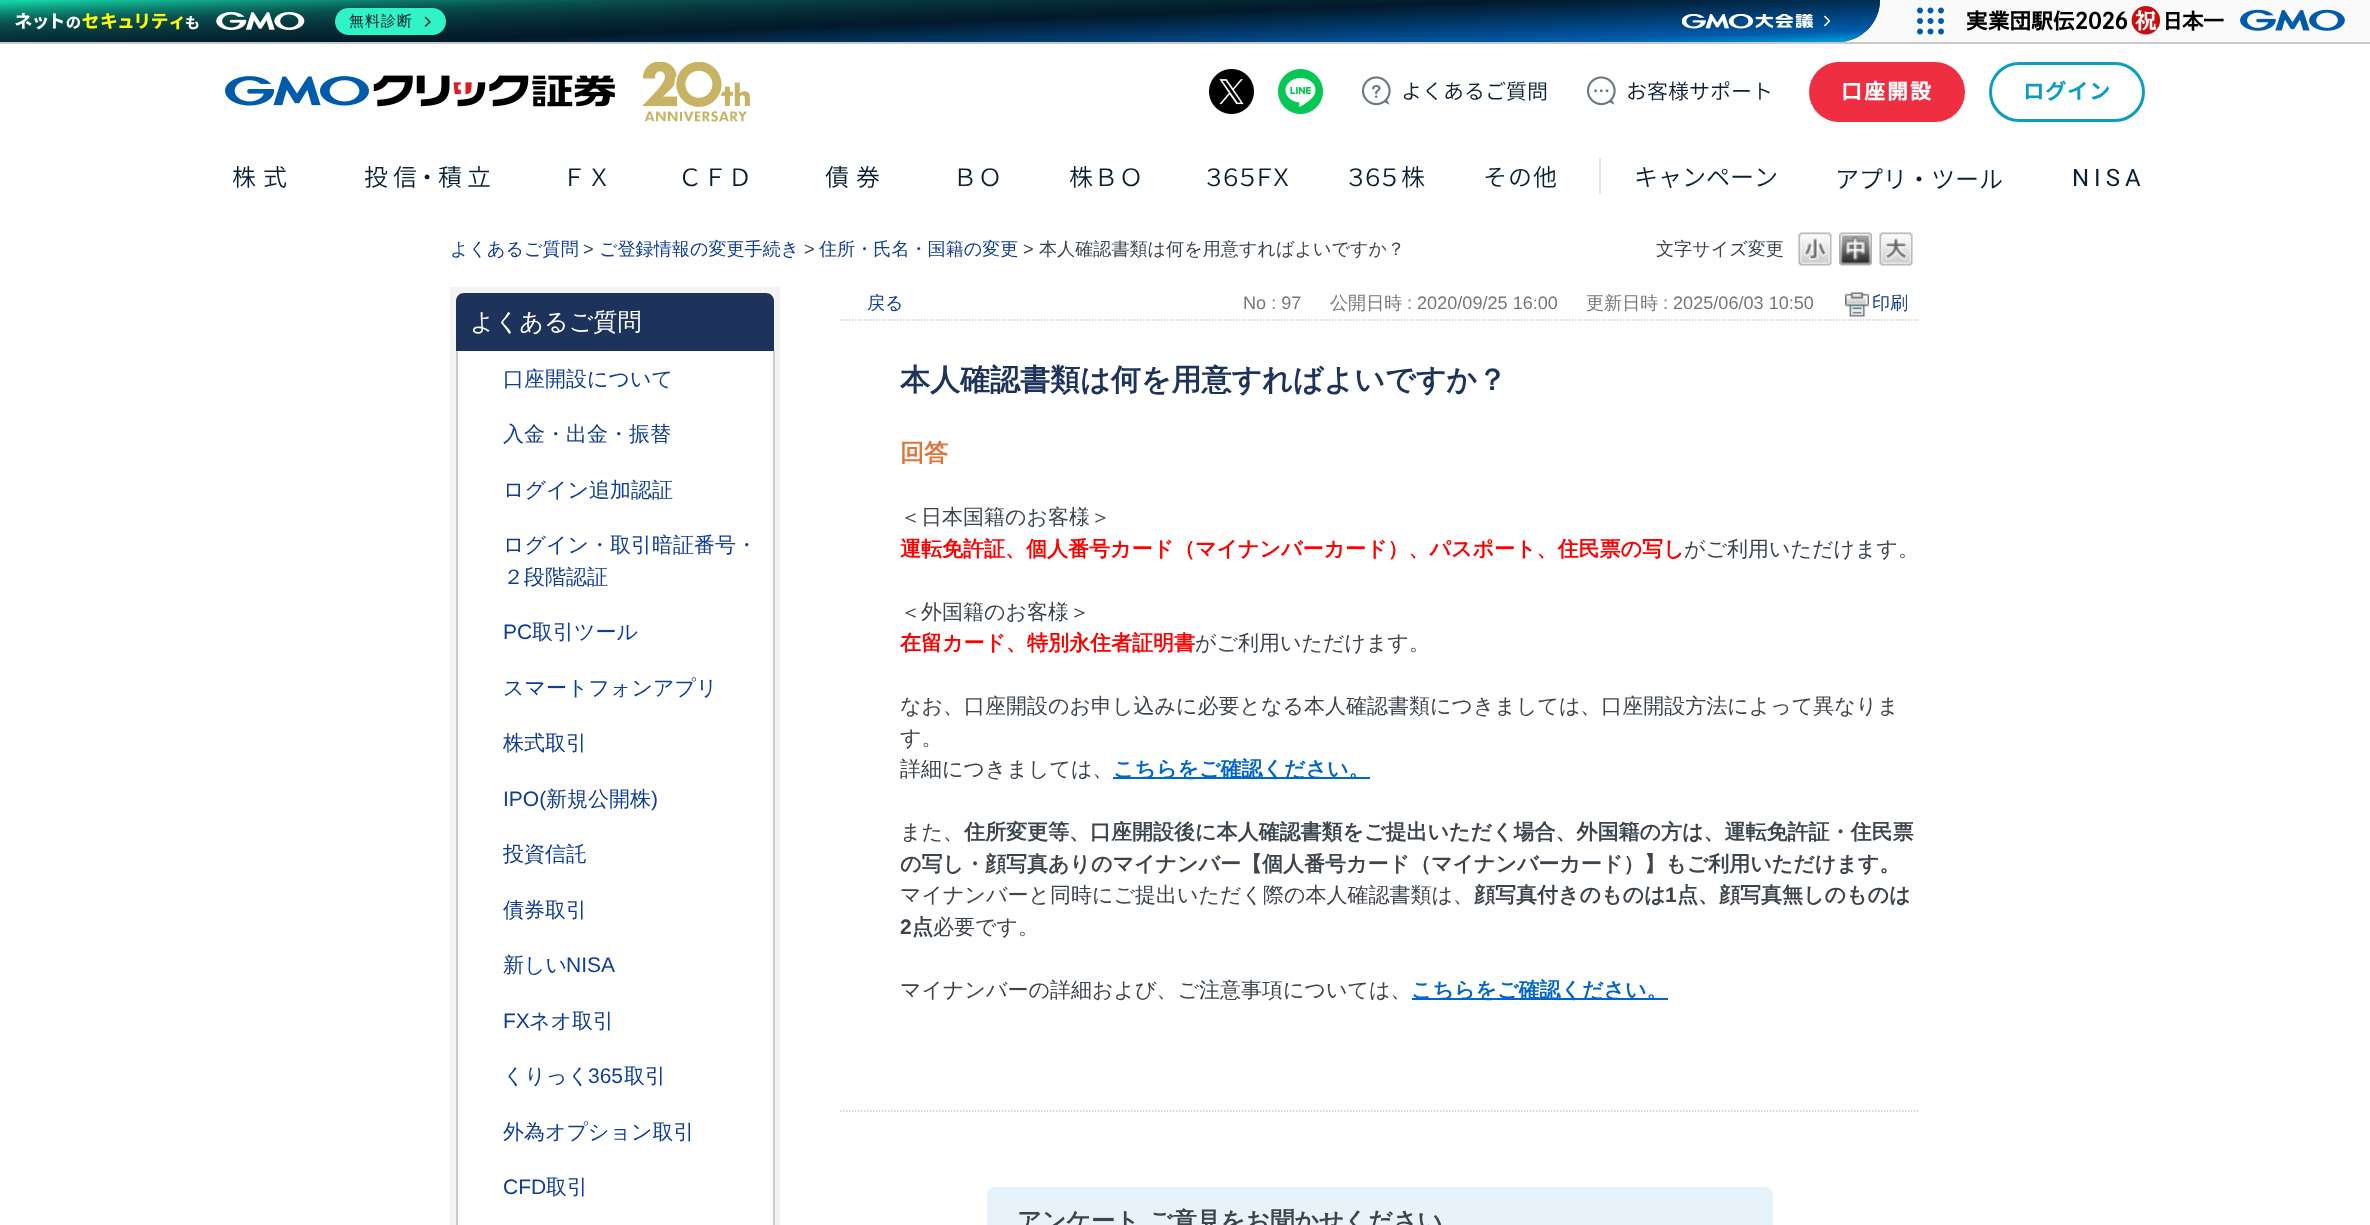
<?xml version="1.0" encoding="UTF-8"?>
<svg xmlns="http://www.w3.org/2000/svg" width="2370" height="1225">
    <defs>
        <linearGradient id="g1" gradientUnits="userSpaceOnUse" x1="938" y1="-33" x2="942" y2="75"><stop offset="0" stop-color="#13D4A5"/><stop offset="0.21" stop-color="#0E7365"/><stop offset="0.49" stop-color="#0B4D4B"/></linearGradient>
        <linearGradient id="g2" gradientUnits="userSpaceOnUse" x1="942" y1="75" x2="938" y2="-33"><stop offset="0" stop-color="#019CD9"/><stop offset="0.1" stop-color="#005BAC"/><stop offset="0.49" stop-color="#02192A"/><stop offset="1" stop-color="#02192A" stop-opacity="0"/></linearGradient>
        <clipPath id="clip1"><rect x="503" y="839" width="259" height="31"/></clipPath>
    </defs>
    <rect width="100%" height="100%" fill="#FFFFFF"/>
    <rect x="1838" y="0" width="532" height="42" fill="#FAFAFA"/>
    <rect x="0" y="42" width="2370" height="2" fill="#C8C8C8"/>
    <path d="M 0 0 H 1880 C 1880 23 1861 42 1838 42 H 0 Z" fill="url(#g1)"/>
    <path d="M 0 0 H 1880 C 1880 23 1861 42 1838 42 H 0 Z" fill="url(#g2)"/>
    <image x="15" y="12" width="290" height="18" href="img_01.png"/>
    <rect x="335" y="8" width="111" height="27" rx="13.5" fill="#30F4C5"/>
    <text x="349" y="26" font-family="WenQuanYi Zen Hei" font-size="15" font-weight="500" letter-spacing="1" fill="#021725">無料診断</text>
    <path d="M 425.5 17.5 L 430 22 L 425.5 26" fill="none" stroke="#021725" stroke-width="1.4" stroke-linecap="round" stroke-linejoin="round"/>
    <image x="1682" y="14" width="148" height="15" href="img_02.png"/>
    <image x="1917" y="7" width="27" height="28" href="img_03.png"/>
    <image x="1967" y="6" width="378" height="29" href="img_04.png"/>
    <image x="642" y="62" width="108" height="60" href="img_05.png"/>
    <image x="225" y="75" width="390" height="32" href="img_06.png"/>
    <image x="1209" y="69" width="45" height="45" href="img_07.png"/>
    <image x="1278" y="69" width="45" height="45" href="img_08.png"/>
    <image x="1361" y="76" width="30" height="30" href="img_09.png"/>
    <text x="1401" y="99" font-family="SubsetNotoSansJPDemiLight" font-size="21" font-weight="300" fill="#0A1F33">よくあるご質問</text>
    <image x="1586" y="76" width="30" height="30" href="img_10.png"/>
    <text x="1626" y="99" font-family="SubsetNotoSansJPDemiLight" font-size="21" font-weight="300" fill="#0A1F33">お客様サポート</text>
    <rect x="1809" y="62" width="156" height="60" rx="30" fill="#EF2E42"/>
    <text x="1841" y="99" font-family="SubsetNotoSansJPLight" font-size="21" font-weight="700" letter-spacing="2" fill="#FFFFFF">口座開設</text>
    <rect x="1990.5" y="63.5" width="153" height="57" rx="28.5" fill="none" stroke="#0C9DC2" stroke-width="3"/>
    <text x="2023" y="99" font-family="SubsetNotoSansJPLight" font-size="21" font-weight="700" letter-spacing="1" fill="#0C9DC2">ログイン</text>
    <text x="232" y="186" font-family="SubsetNotoSansJPDemiLight" font-size="24" font-weight="300" letter-spacing="7" fill="#0A1F33">株式</text>
    <text x="364" y="186" font-family="SubsetNotoSansJPDemiLight" font-size="24" font-weight="300" letter-spacing="5" fill="#0A1F33">投信</text>
    <text x="421" y="186" font-family="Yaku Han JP" font-size="24" font-weight="300" letter-spacing="5" fill="#0A1F33">・</text>
    <text x="438" y="186" font-family="SubsetNotoSansJPDemiLight" font-size="24" font-weight="300" letter-spacing="5" fill="#0A1F33">積立</text>
    <text x="562" y="186" font-family="SubsetNotoSansJPDemiLight" font-size="24" font-weight="300" letter-spacing="1" fill="#0A1F33">ＦＸ</text>
    <text x="678" y="186" font-family="SubsetNotoSansJPDemiLight" font-size="24" font-weight="300" letter-spacing="1" fill="#0A1F33">ＣＦＤ</text>
    <text x="825" y="186" font-family="SubsetNotoSansJPDemiLight" font-size="24" font-weight="300" letter-spacing="7" fill="#0A1F33">債券</text>
    <text x="953" y="186" font-family="SubsetNotoSansJPDemiLight" font-size="24" font-weight="300" letter-spacing="1" fill="#0A1F33">ＢＯ</text>
    <text x="1069" y="186" font-family="SubsetNotoSansJPDemiLight" font-size="24" font-weight="300" letter-spacing="1" fill="#0A1F33">株ＢＯ</text>
    <text x="1202" y="186" font-family="SubsetNotoSansJPDemiLight" font-size="24" font-weight="300" letter-spacing="-7.25" fill="#0A1F33">３６５ＦＸ</text>
    <text x="1344" y="186" font-family="SubsetNotoSansJPDemiLight" font-size="24" font-weight="300" letter-spacing="-7.25" fill="#0A1F33">３６５</text>
    <text x="1401" y="186" font-family="SubsetNotoSansJPDemiLight" font-size="24" font-weight="300" fill="#0A1F33">株</text>
    <rect x="1599" y="158" width="2" height="36" fill="#E7E9EB"/>
    <text x="1483" y="186" font-family="SubsetNotoSansJPDemiLight" font-size="24" font-weight="300" letter-spacing="1" fill="#0A1F33">その他</text>
    <text x="1634" y="186" font-family="SubsetNotoSansJPDemiLight" font-size="24" font-weight="300" fill="#0A1F33">キャンペーン</text>
    <text x="1835" y="188" font-family="SubsetNotoSansJPDemiLight" font-size="24" font-weight="300" fill="#0A1F33">アプリ・ツール</text>
    <text x="2072" y="186" font-family="Roboto" font-size="24" letter-spacing="5" fill="#0A1F33">NISA</text>
    <text x="450" y="255" font-family="WenQuanYi Zen Hei" font-size="18.1" font-weight="500" fill="#0F3D99">よくあるご質問</text>
    <text x="583" y="255" font-family="Liberation Sans" font-size="18.1" fill="#3D444C">&gt;</text>
    <text x="599" y="255" font-family="WenQuanYi Zen Hei" font-size="18.1" font-weight="500" fill="#0F3D99">ご登録情報の変更手続き</text>
    <text x="804" y="255" font-family="Liberation Sans" font-size="18.1" fill="#3D444C">&gt;</text>
    <text x="819" y="255" font-family="WenQuanYi Zen Hei" font-size="18.1" font-weight="500" fill="#0F3D99">住所・氏名・国籍の変更</text>
    <text x="1023" y="255" font-family="Liberation Sans" font-size="18.1" fill="#3D444C">&gt;</text>
    <text x="1039" y="255" font-family="WenQuanYi Zen Hei" font-size="18.1" font-weight="500" fill="#3D444C">本人確認書類は何を用意すればよいですか？</text>
    <text x="1656" y="255" font-family="WenQuanYi Zen Hei" font-size="18.1" font-weight="500" fill="#3D444C">文字サイズ変更</text>
    <image x="1798" y="232" width="34" height="34" href="img_11.png"/>
    <image x="1839" y="232" width="33" height="34" href="img_12.png"/>
    <image x="1879" y="232" width="34" height="34" href="img_13.png"/>
    <rect x="450" y="287" width="330" height="938" fill="#F3F3F4"/>
    <rect x="456" y="293" width="318" height="932" fill="#FFFFFF"/>
    <path d="M 464 293 H 766 C 770.5 293 774 296.5 774 301 V 351 H 456 V 301 C 456 296.5 459.5 293 464 293 Z" fill="#1E335C"/>
    <text x="470" y="330" font-family="WenQuanYi Zen Hei" font-size="24.1" font-weight="500" fill="#FFFFFF">よくあるご質問</text>
    <rect x="773" y="351" width="2" height="874" fill="#C7CCD6"/>
    <rect x="456" y="351" width="2" height="874" fill="#C7CCD6"/>
    <text x="503" y="386" font-family="WenQuanYi Zen Hei" font-size="21" font-weight="500" fill="#0F3D99">口座開設について</text>
    <text x="503" y="441" font-family="WenQuanYi Zen Hei" font-size="21" font-weight="500" fill="#0F3D99">入金・出金・振替</text>
    <text x="503" y="497" font-family="WenQuanYi Zen Hei" font-size="21" font-weight="500" fill="#0F3D99">ログイン追加認証</text>
    <text font-family="WenQuanYi Zen Hei" font-size="21" font-weight="500" fill="#0F3D99">
        <tspan x="503" y="552">ログイン・取引暗証番号・</tspan>
        <tspan x="503" y="584">２段階認証</tspan>
    </text>
    <text x="503" y="639" font-family="Liberation Sans" font-size="21" fill="#0F3D99">PC</text>
    <text x="532" y="639" font-family="WenQuanYi Zen Hei" font-size="21" font-weight="500" fill="#0F3D99">取引ツール</text>
    <text x="503" y="695" font-family="WenQuanYi Zen Hei" font-size="21" font-weight="500" fill="#0F3D99">スマートフォンアプリ</text>
    <text x="503" y="750" font-family="WenQuanYi Zen Hei" font-size="21" font-weight="500" fill="#0F3D99">株式取引</text>
    <text x="503" y="806" font-family="Liberation Sans" font-size="21" fill="#0F3D99">IPO(</text>
    <text x="546" y="806" font-family="WenQuanYi Zen Hei" font-size="21" font-weight="500" fill="#0F3D99">新規公開株</text>
    <text x="651" y="806" font-family="Liberation Sans" font-size="21" fill="#0F3D99">)</text>
    <g clip-path="url(#clip1)">
        <text x="503" y="861" font-family="WenQuanYi Zen Hei" font-size="21" font-weight="500" fill="#0F3D99">投資信託</text>
    </g>
    <text x="503" y="917" font-family="WenQuanYi Zen Hei" font-size="21" font-weight="500" fill="#0F3D99">債券取引</text>
    <text x="503" y="972" font-family="WenQuanYi Zen Hei" font-size="21" font-weight="500" fill="#0F3D99">新しい</text>
    <text x="566" y="972" font-family="Liberation Sans" font-size="21" fill="#0F3D99">NISA</text>
    <text x="503" y="1028" font-family="Liberation Sans" font-size="21" fill="#0F3D99">FX</text>
    <text x="529" y="1028" font-family="WenQuanYi Zen Hei" font-size="21" font-weight="500" fill="#0F3D99">ネオ取引</text>
    <text x="503" y="1083" font-family="WenQuanYi Zen Hei" font-size="21" font-weight="500" fill="#0F3D99">くりっく</text>
    <text x="588" y="1083" font-family="Liberation Sans" font-size="21" fill="#0F3D99">365</text>
    <text x="624" y="1083" font-family="WenQuanYi Zen Hei" font-size="21" font-weight="500" fill="#0F3D99">取引</text>
    <text x="503" y="1139" font-family="WenQuanYi Zen Hei" font-size="21" font-weight="500" fill="#0F3D99">外為オプション取引</text>
    <text x="503" y="1194" font-family="Liberation Sans" font-size="21" fill="#0F3D99">CFD</text>
    <text x="546" y="1194" font-family="WenQuanYi Zen Hei" font-size="21" font-weight="500" fill="#0F3D99">取引</text>
    <path d="M 840 320 H 1920" fill="none" stroke="#CCCCCC" stroke-width="1.5" stroke-dasharray="1.5 1.5"/>
    <text x="867" y="309" font-family="WenQuanYi Zen Hei" font-size="18.1" font-weight="500" fill="#0F3D99">戻る</text>
    <text x="1243" y="309" font-family="Liberation Sans" font-size="18.1" fill="#777777">No : 97</text>
    <text x="1330" y="309" font-family="WenQuanYi Zen Hei" font-size="18.1" font-weight="500" fill="#777777">公開日時</text>
    <text x="1407" y="309" font-family="Liberation Sans" font-size="18.1" fill="#777777">: 2020/09/25 16:00</text>
    <text x="1586" y="309" font-family="WenQuanYi Zen Hei" font-size="18.1" font-weight="500" fill="#777777">更新日時</text>
    <text x="1663" y="309" font-family="Liberation Sans" font-size="18.1" fill="#777777">: 2025/06/03 10:50</text>
    <image x="1845" y="292" width="24" height="25" href="img_14.png"/>
    <text x="1872" y="309" font-family="WenQuanYi Zen Hei" font-size="18.1" font-weight="500" fill="#0F3D99">印刷</text>
    <text x="900" y="390" font-family="WenQuanYi Zen Hei" font-size="30" font-weight="700" fill="#1E335C">本人確認書類は何を用意すればよいですか？</text>
    <text x="900" y="461" font-family="WenQuanYi Zen Hei" font-size="24.1" font-weight="700" fill="#DF7538">回答</text>
    <path d="M 840 1111 H 1920" fill="none" stroke="#CCCCCC" stroke-width="1.5" stroke-dasharray="1.5 1.5"/>
    <text x="900" y="524" font-family="WenQuanYi Zen Hei" font-size="21" font-weight="500" fill="#3D444C">＜日本国籍のお客様＞</text>
    <text x="900" y="556" font-family="WenQuanYi Zen Hei" font-size="21" font-weight="700" fill="#FF0000">運転免許証、個人番号カード（マイナンバーカード）、パスポート、住民票の写し</text>
    <text x="1684" y="556" font-family="WenQuanYi Zen Hei" font-size="21" font-weight="500" fill="#3D444C">がご利用いただけます。</text>
    <text x="900" y="619" font-family="WenQuanYi Zen Hei" font-size="21" font-weight="500" fill="#3D444C">＜外国籍のお客様＞</text>
    <text x="900" y="650" font-family="WenQuanYi Zen Hei" font-size="21" font-weight="700" fill="#FF0000">在留カード、特別永住者証明書</text>
    <text x="1195" y="650" font-family="WenQuanYi Zen Hei" font-size="21" font-weight="500" fill="#3D444C">がご利用いただけます。</text>
    <text font-family="WenQuanYi Zen Hei" font-size="21" font-weight="500" fill="#3D444C">
        <tspan x="900" y="713">なお、口座開設のお申し込みに必要となる本人確認書類につきましては、口座開設方法によって異なりま</tspan>
        <tspan x="900" y="745">す。</tspan>
        <tspan x="900" y="776">詳細につきましては、</tspan>
    </text>
    <rect x="1113" y="777" width="257" height="2" fill="#0066CC"/>
    <text x="1113" y="776" font-family="WenQuanYi Zen Hei" font-size="21" font-weight="700" fill="#0066CC">こちらをご確認ください。</text>
    <text x="900" y="839" font-family="WenQuanYi Zen Hei" font-size="21" font-weight="500" fill="#3D444C">また、</text>
    <text x="964" y="839" font-family="WenQuanYi Zen Hei" font-size="21" font-weight="700" fill="#3D444C">住所変更等、口座開設後に本人確認書類をご提出いただく場合、外国籍の方は、運転免許証・住民票</text>
    <text x="900" y="871" font-family="WenQuanYi Zen Hei" font-size="21" font-weight="700" fill="#3D444C">の写し・顔写真ありのマイナンバー【個人番号カード（マイナンバーカード）】もご利用いただけます。</text>
    <text x="900" y="902" font-family="WenQuanYi Zen Hei" font-size="21" font-weight="500" fill="#3D444C">マイナンバーと同時にご提出いただく際の本人確認書類は、</text>
    <text x="1474" y="902" font-family="WenQuanYi Zen Hei" font-size="21" font-weight="700" fill="#3D444C">顔写真付きのものは</text>
    <text x="1665" y="902" font-family="Liberation Sans" font-size="21" font-weight="700" fill="#3D444C">1</text>
    <text x="1677" y="902" font-family="WenQuanYi Zen Hei" font-size="21" font-weight="700" fill="#3D444C">点、顔写真無しのものは</text>
    <text x="900" y="934" font-family="Liberation Sans" font-size="21" font-weight="700" fill="#3D444C">2</text>
    <text x="912" y="934" font-family="WenQuanYi Zen Hei" font-size="21" font-weight="700" fill="#3D444C">点</text>
    <text x="933" y="934" font-family="WenQuanYi Zen Hei" font-size="21" font-weight="500" fill="#3D444C">必要です。</text>
    <text x="900" y="997" font-family="WenQuanYi Zen Hei" font-size="21" font-weight="500" fill="#3D444C">マイナンバーの詳細および、ご注意事項については、</text>
    <rect x="1412" y="998" width="256" height="2" fill="#0066CC"/>
    <text x="1411" y="997" font-family="WenQuanYi Zen Hei" font-size="21" font-weight="700" fill="#0066CC">こちらをご確認ください。</text>
    <rect x="987" y="1187" width="786" height="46" rx="8" fill="#E8F2FB"/>
    <text x="1017" y="1229" font-family="WenQuanYi Zen Hei" font-size="24.1" font-weight="700" fill="#3D444C">アンケート</text>
    <text x="1148" y="1229" font-family="WenQuanYi Zen Hei" font-size="24.1" font-weight="700" fill="#3D444C">ご意見をお聞かせください</text>
</svg>
